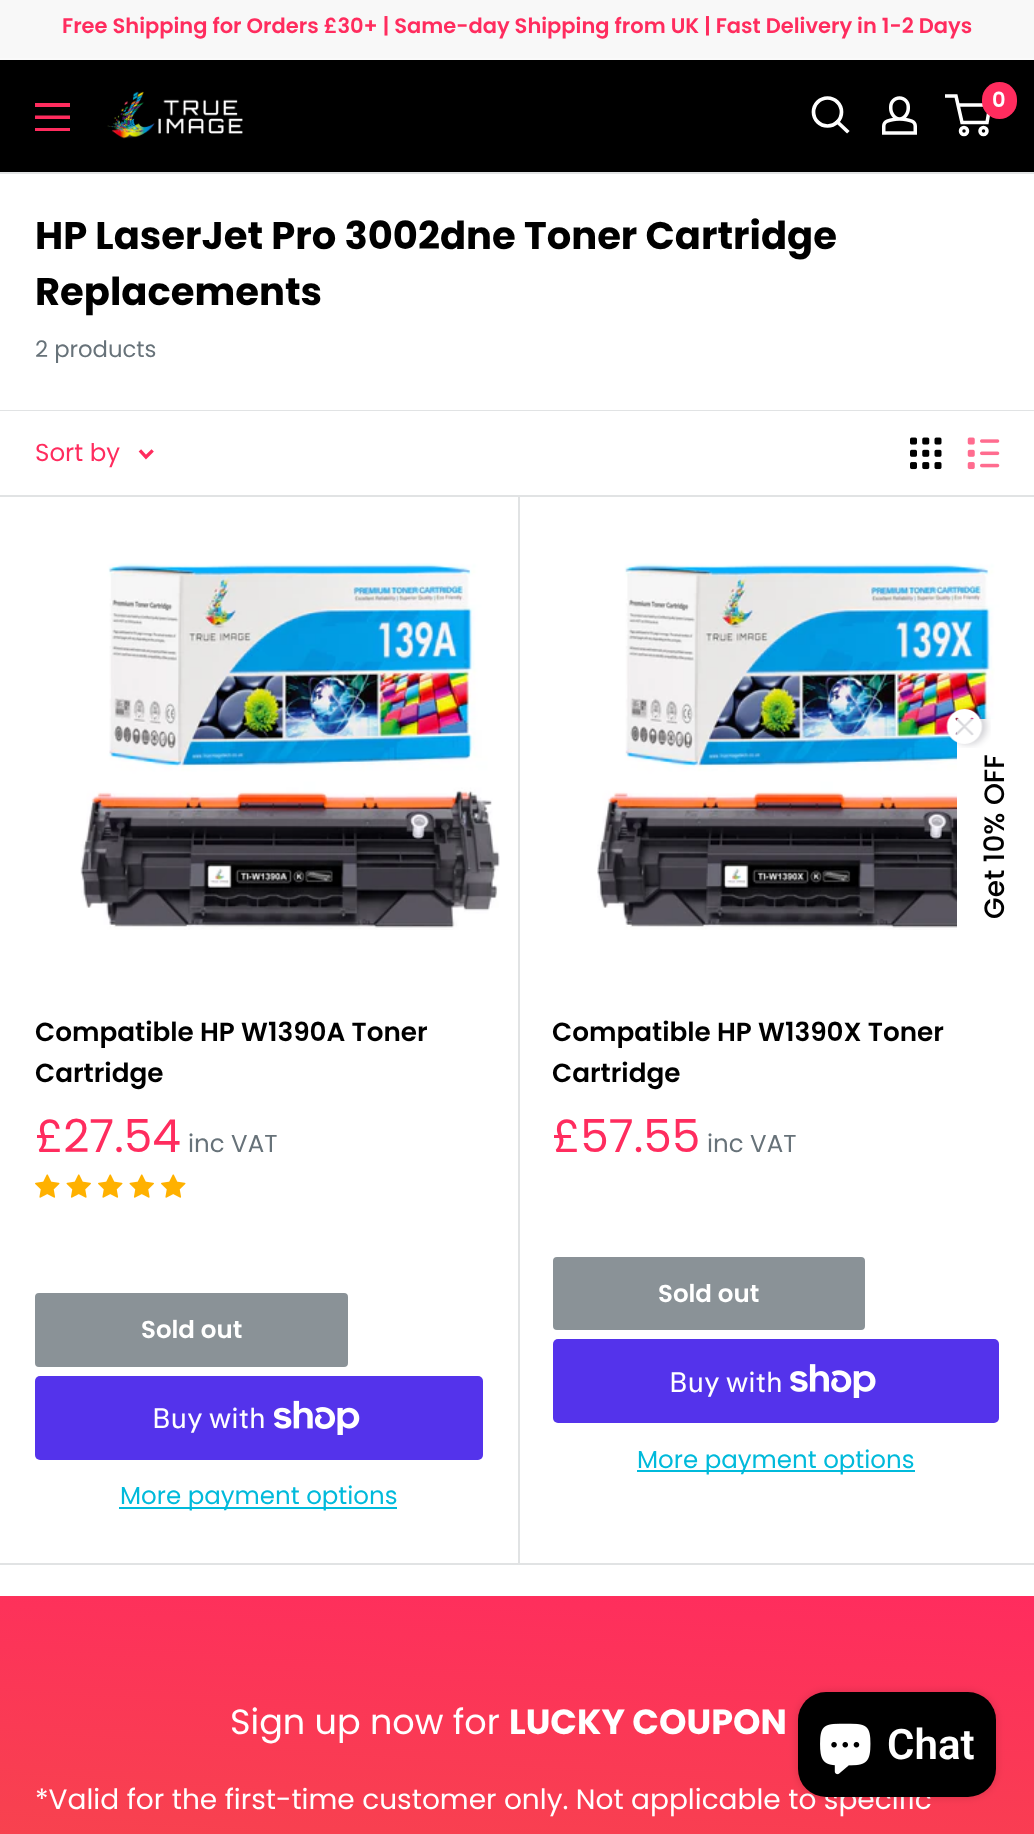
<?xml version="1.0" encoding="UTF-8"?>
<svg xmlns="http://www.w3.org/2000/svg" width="1034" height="1834">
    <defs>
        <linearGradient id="g1" gradientUnits="userSpaceOnUse" x1="490" y1="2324" x2="543" y2="1562"><stop offset="0" stop-color="#EC6338"/><stop offset="1" stop-color="#FF2C5E"/></linearGradient>
        <filter id="blur1" x="-50%" y="-200%" width="200%" height="500%"><feGaussianBlur stdDeviation="4.5"/></filter>
    </defs>
    <rect width="100%" height="100%" fill="#FFFFFF"/>
    <rect x="0" y="0" width="1034" height="58" fill="#F8F8F8"/>
    <rect x="0" y="58" width="1034" height="2" fill="#FAFAFA"/>
    <text x="62" y="33" font-family="Poppins" font-size="21" font-weight="600" fill="#FF2C5E">Free Shipping for Orders £30+ | Same-day Shipping from UK | Fast Delivery in 1-2 Days</text>
    <rect x="0" y="60" width="1034" height="112" fill="#000000"/>
    <image x="107" y="91" width="136" height="48" href="img_01.png"/>
    <path d="M 847 131 L 837.5 122" fill="none" stroke="#FFFFFF" stroke-width="3.7" stroke-linecap="square"/>
    <circle cx="827.5" cy="112" r="14" fill="none" stroke="#FFFFFF" stroke-width="3.7"/>
    <image x="882" y="96" width="35" height="39" href="img_02.png"/>
    <circle cx="964" cy="131" r="3.5" fill="none" stroke="#FFFFFF" stroke-width="3.5"/>
    <circle cx="983.5" cy="131" r="3.5" fill="none" stroke="#FFFFFF" stroke-width="3.5"/>
    <path d="M 958 105 H 990 L 987 122.5 H 962 L 956 96 H 945" fill="none" stroke="#FFFFFF" stroke-width="3.5"/>
    <rect x="982" y="82" width="35" height="37" rx="17.5" fill="#FF2C5E"/>
    <text x="992" y="107" font-family="Poppins" font-size="21" font-weight="600" fill="#FFFFFF">0</text>
    <path d="M 35 128 H 70 V 131 H 35 Z M 35 103 H 70 V 107 H 35 Z M 35 115.5 H 70 V 119 H 35 Z" fill="#FF2C5E" fill-rule="evenodd"/>
    <rect x="0" y="172" width="1034" height="2" fill="#E1E3E4"/>
    <rect x="0" y="1563" width="1034" height="2" fill="#E1E3E4"/>
    <text font-family="Poppins" font-size="38.5" font-weight="700" fill="#000000">
        <tspan x="35" y="249">HP LaserJet Pro 3002dne Toner Cartridge</tspan>
        <tspan x="35" y="305">Replacements</tspan>
    </text>
    <text x="35" y="357" font-family="Poppins" font-size="22.75" fill="#677279">2 products</text>
    <rect x="0" y="410" width="1034" height="1" fill="#E1E3E4"/>
    <path d="M 2 495 H 518 V 1563 H 2 H 520 V 495 Z" fill="#E1E3E4"/>
    <rect x="0" y="495" width="1034" height="2" fill="#E1E3E4"/>
    <text x="35" y="461" font-family="Poppins" font-size="24.5" fill="#FF2C5E">Sort by</text>
    <path d="M 151.5 451.5 L 146 457 L 141 451.5" fill="none" stroke="#FF2C5E" stroke-width="3.3" stroke-linecap="square"/>
    <image x="910" y="437" width="32" height="33" href="img_03.png"/>
    <image x="967" y="437" width="33" height="33" href="img_04.png"/>
    <image x="80" y="563" width="420" height="367" href="img_05.png"/>
    <text font-family="Poppins" font-size="26.25" font-weight="600" fill="#000000">
        <tspan x="35" y="1041">Compatible HP W1390A Toner</tspan>
        <tspan x="35" y="1082">Cartridge</tspan>
    </text>
    <text x="35" y="1152" font-family="Poppins" font-size="45.5" fill="#FF2C5E">£27.54</text>
    <text x="188" y="1152" font-family="Poppins" font-size="24.5" fill="#677279">inc VAT</text>
    <image x="35" y="1174" width="25" height="24" href="img_06.png"/>
    <image x="66" y="1174" width="25" height="24" href="img_07.png"/>
    <image x="98" y="1174" width="25" height="24" href="img_06.png"/>
    <image x="129" y="1174" width="25" height="24" href="img_07.png"/>
    <image x="161" y="1174" width="25" height="24" href="img_06.png"/>
    <rect x="36" y="1294" width="311" height="72" rx="3" fill="#8A9297" stroke="#8A9297" stroke-width="2"/>
    <text x="141" y="1338" font-family="Poppins" font-size="24.5" font-weight="600" fill="#FFFFFF">Sold out</text>
    <rect x="35" y="1376" width="448" height="84" rx="5" fill="#5433EB"/>
    <text x="152" y="1428" font-family="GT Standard" font-size="28" fill="#FFFFFF">Buy with</text>
    <image x="274" y="1400" width="86" height="35" href="img_08.png"/>
    <rect x="119" y="1507" width="278" height="2" fill="#00BADB"/>
    <text x="120" y="1504" font-family="Poppins" font-size="24.5" fill="#00BADB">More payment options</text>
    <image x="597" y="563" width="421" height="367" href="img_09.png"/>
    <text font-family="Poppins" font-size="26.25" font-weight="600" fill="#000000">
        <tspan x="552" y="1041">Compatible HP W1390X Toner</tspan>
        <tspan x="552" y="1082">Cartridge</tspan>
    </text>
    <text x="552" y="1152" font-family="Poppins" font-size="45.5" fill="#FF2C5E">£57.55</text>
    <text x="707" y="1152" font-family="Poppins" font-size="24.5" fill="#677279">inc VAT</text>
    <rect x="554" y="1258" width="310" height="71" rx="3" fill="#8A9297" stroke="#8A9297" stroke-width="2"/>
    <text x="658" y="1302" font-family="Poppins" font-size="24.5" font-weight="600" fill="#FFFFFF">Sold out</text>
    <rect x="553" y="1339" width="446" height="84" rx="5" fill="#5433EB"/>
    <text x="669" y="1392" font-family="GT Standard" font-size="28" fill="#FFFFFF">Buy with</text>
    <image x="790" y="1364" width="86" height="34" href="img_10.png"/>
    <rect x="637" y="1470" width="278" height="2" fill="#00BADB"/>
    <text x="637" y="1468" font-family="Poppins" font-size="24.5" fill="#00BADB">More payment options</text>
    <rect x="957" y="719" width="61" height="211" fill="#FFFFFF"/>
    <image x="946" y="705" width="45" height="43" href="img_11.png"/>
    <text x="1004" y="919" transform="rotate(-90 1004 919)" font-family="Poppins" font-size="28" font-weight="500" fill="#000000">Get 10% OFF</text>
    <rect x="0" y="1596" width="1034" height="238" fill="url(#g1)"/>
    <text x="230" y="1734" font-family="Poppins" font-size="35" fill="#FFFFFF">Sign up now for</text>
    <text x="509" y="1734" font-family="Poppins" font-size="35" font-weight="700" fill="#FFFFFF">LUCKY COUPON</text>
    <text x="35" y="1809" font-family="Poppins" font-size="28" fill="#FFFFFF">*Valid for the first-time customer only. Not applicable to specific</text>
    <rect x="798" y="1692" width="198" height="105" rx="28" fill="#000000" fill-opacity="0.15" filter="url(#blur1)"/>
    <rect x="798" y="1692" width="198" height="105" rx="28" fill="#000000"/>
    <image x="820" y="1723" width="51" height="52" href="img_12.png"/>
    <text x="887" y="1759" font-family="Roboto" font-size="42" font-weight="600" fill="#FFFFFF">Chat</text>
</svg>
